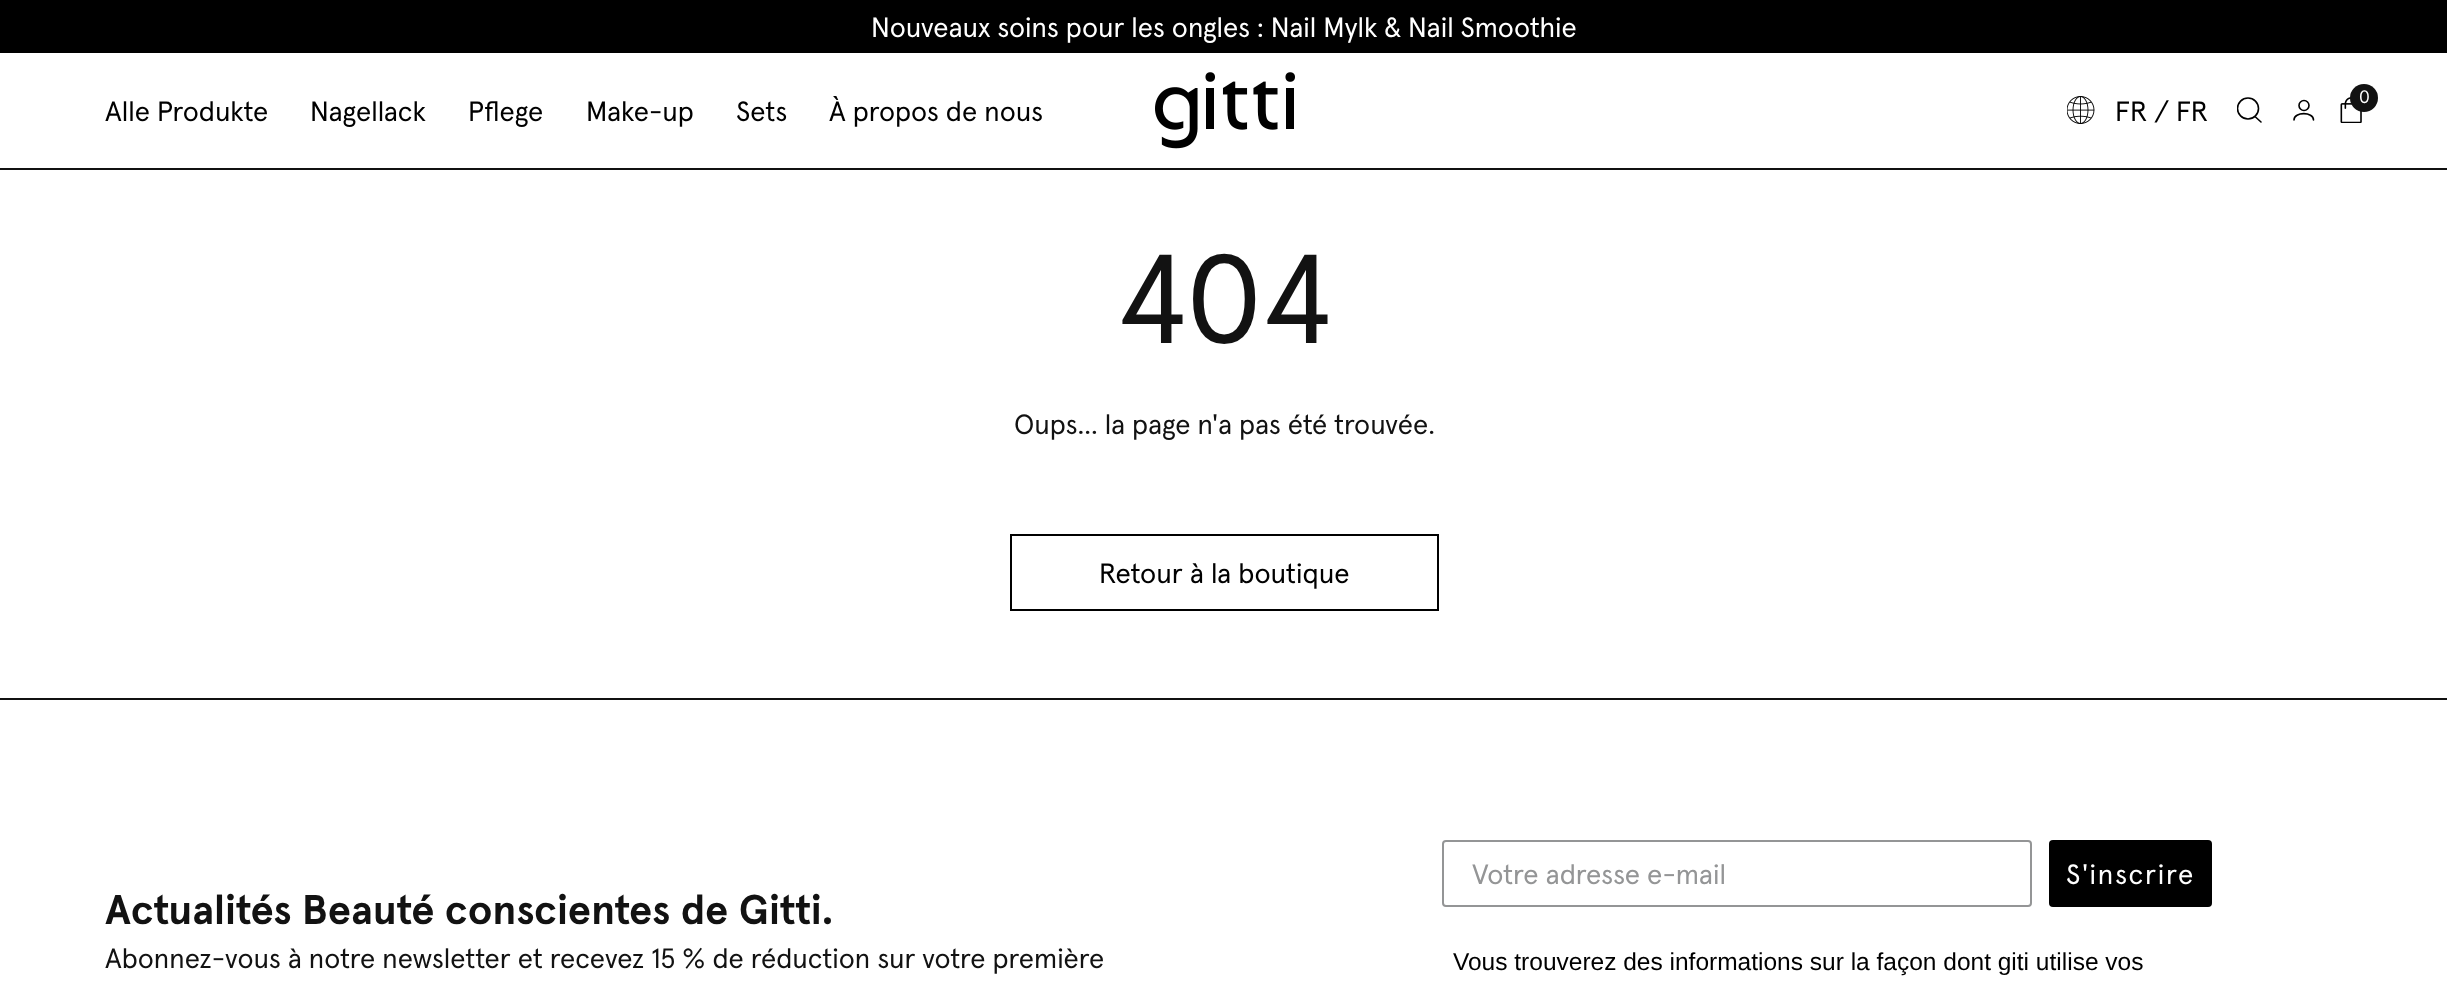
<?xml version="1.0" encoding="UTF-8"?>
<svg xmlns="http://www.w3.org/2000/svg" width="2447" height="995">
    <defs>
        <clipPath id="clip1"><rect x="2237" y="89" width="26" height="42"/></clipPath>
    </defs>
    <rect width="100%" height="100%" fill="#FFFFFF"/>
    <rect x="0" y="0" width="2447" height="53" fill="#000000"/>
    <text x="871" y="37" font-family="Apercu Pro" font-size="27.85" fill="#FFFFFF">Nouveaux soins pour les ongles : Nail Mylk &amp; Nail Smoothie</text>
    <rect x="0" y="168" width="2447" height="2" fill="#111111"/>
    <text x="105" y="121" font-family="Apercu Pro" font-size="27.85" fill="#000000">Alle Produkte</text>
    <text x="310" y="121" font-family="Apercu Pro" font-size="27.85" fill="#000000">Nagellack</text>
    <text x="468" y="121" font-family="Apercu Pro" font-size="27.85" fill="#000000">Pflege</text>
    <text x="586" y="121" font-family="Apercu Pro" font-size="27.85" fill="#000000">Make-up</text>
    <text x="736" y="121" font-family="Apercu Pro" font-size="27.85" fill="#000000">Sets</text>
    <text x="829" y="121" font-family="Apercu Pro" font-size="27.85" fill="#000000">À propos de nous</text>
    <image x="1155" y="72" width="140" height="77" href="img_01.png"/>
    <image x="2067" y="96" width="28" height="28" href="img_02.png"/>
    <text x="2115" y="121" font-family="Apercu Pro" font-size="27.85" fill="#000000">FR / FR</text>
    <g clip-path="url(#clip1)">
        <circle cx="2248" cy="108.5" r="10.5" fill="none" stroke="#000000" stroke-width="1.6"/>
    </g>
    <path d="M 2255.5 117 L 2261 122" fill="none" stroke="#000000" stroke-width="1.6" stroke-linecap="round"/>
    <image x="2340" y="97" width="22" height="26" href="img_03.png"/>
    <circle cx="2364" cy="98" r="14" fill="#121212"/>
    <text x="2359" y="103" font-family="Apercu Pro" font-size="18" fill="#FFFFFF">0</text>
    <circle cx="2304" cy="105.5" r="5" fill="none" stroke="#000000" stroke-width="1.6"/>
    <path d="M 2313.5 120 C 2313.5 111.5 2294 111.5 2294 120" fill="none" stroke="#000000" stroke-width="1.6" stroke-linecap="round"/>
    <text x="1117" y="343" font-family="Apercu Pro" font-size="126" fill="#121212">404</text>
    <text x="1014" y="434" font-family="Apercu Pro" font-size="27.85" fill="#121212">Oups... la page n'a pas été trouvée.</text>
    <rect x="1011" y="535" width="427" height="75" fill="none" stroke="#000000" stroke-width="2"/>
    <text x="1099" y="583" font-family="Apercu Pro" font-size="28" fill="#000000">Retour à la boutique</text>
    <rect x="0" y="698" width="2447" height="2" fill="#111111"/>
    <text x="105" y="924" font-family="Apercu Pro" font-size="41.6" font-weight="700" fill="#121212">Actualités Beauté conscientes de Gitti.</text>
    <text x="105" y="968" font-family="Apercu Pro" font-size="27.85" fill="#121212">Abonnez-vous à notre newsletter et recevez 15 % de réduction sur votre première</text>
    <rect x="1443" y="841" width="588" height="65" rx="3" fill="none" stroke="#949596" stroke-width="2"/>
    <text x="1472" y="884" font-family="Apercu Pro" font-size="28" fill="#949596">Votre adresse e-mail</text>
    <rect x="2049" y="840" width="163" height="67" rx="4" fill="#000000"/>
    <text x="2066" y="884" font-family="Apercu Pro" font-size="28" letter-spacing="1.75" fill="#FFFFFF">S'inscrire</text>
    <text x="1453" y="970" font-family="Liberation Sans" font-size="24.5" fill="#000000">Vous trouverez des informations sur la façon dont giti utilise vos</text>
</svg>
